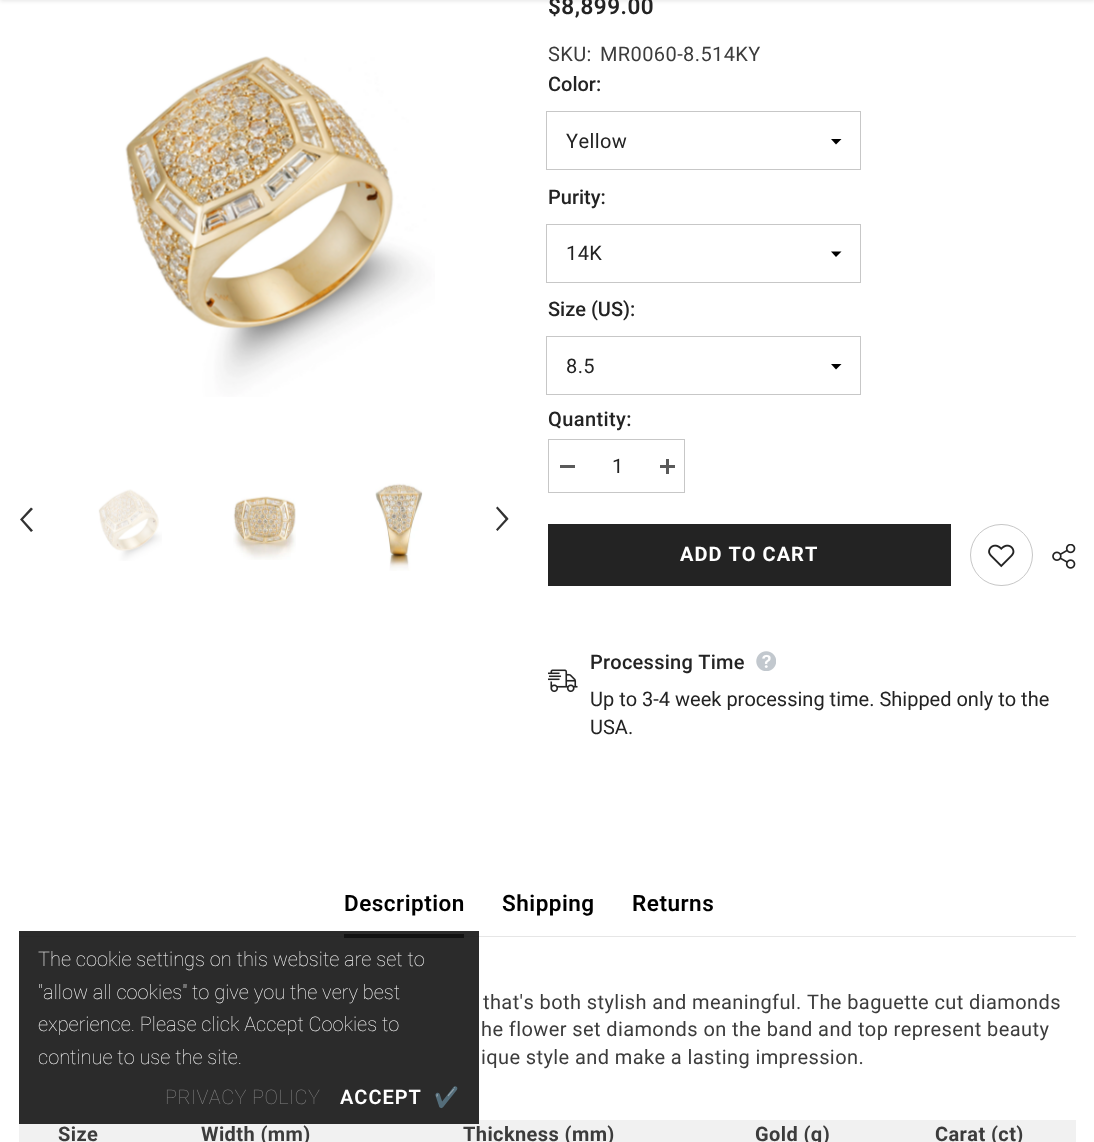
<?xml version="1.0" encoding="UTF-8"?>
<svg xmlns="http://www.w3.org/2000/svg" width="1094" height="1142">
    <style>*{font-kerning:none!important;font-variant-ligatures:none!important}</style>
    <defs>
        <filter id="blur1" x="-50%" y="-200%" width="200%" height="500%"><feGaussianBlur stdDeviation="2"/></filter>
    </defs>
    <rect width="100%" height="100%" fill="#FFFFFF"/>
    <rect x="0" y="-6" width="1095" height="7" fill="#000000" fill-opacity="0.1" filter="url(#blur1)"/>
    <image x="125" y="56" width="310" height="341" href="img_01.png"/>
    <path d="M 31 532 L 33 530.5 L 23 519.5 L 33 509 L 31 507.5 L 20 519.5 L 21 520.5 Z" fill="#323232"/>
    <image x="98" y="489" width="64" height="72" href="img_02.png"/>
    <image x="233" y="496" width="63" height="64" href="img_03.png"/>
    <image x="375" y="483" width="48" height="88" href="img_04.png"/>
    <path d="M 497.5 506.5 L 496 508 L 505.5 519 L 496 529.5 L 497.5 531 L 508.5 519 L 508 518 Z" fill="#323232"/>
    <text x="548" y="14" font-family="Roboto" font-size="22.5" font-weight="600" letter-spacing="0.5" fill="#232323">$8,899.00</text>
    <text x="548" y="61" font-family="Roboto" font-size="20" letter-spacing="0.4" fill="#3C3C3C">SKU:</text>
    <text x="600" y="61" font-family="Roboto" font-size="20" letter-spacing="0.4" fill="#3C3C3C">MR0060-8.514KY</text>
    <text x="548" y="91" font-family="Roboto" font-size="20" font-weight="500" fill="#232323">Color:</text>
    <rect x="546.5" y="111.5" width="314" height="58" fill="none" stroke="#C7C7C7"/>
    <path d="M 831 139 L 836 144.5 L 841.5 139 Z" fill="#000000"/>
    <text x="566" y="148" font-family="Roboto" font-size="20" letter-spacing="0.4" fill="#232323">Yellow</text>
    <text x="548" y="204" font-family="Roboto" font-size="20" font-weight="500" fill="#232323">Purity:</text>
    <rect x="546.5" y="224.5" width="314" height="58" fill="none" stroke="#C7C7C7"/>
    <path d="M 831 251.5 L 836 257 L 841.5 251.5 Z" fill="#000000"/>
    <text x="566" y="260" font-family="Roboto" font-size="20" letter-spacing="0.4" fill="#232323">14K</text>
    <text x="548" y="316" font-family="Roboto" font-size="20" font-weight="500" fill="#232323">Size (US):</text>
    <rect x="546.5" y="336.5" width="314" height="58" fill="none" stroke="#C7C7C7"/>
    <path d="M 831 364 L 836 369.5 L 841.5 364 Z" fill="#000000"/>
    <text x="566" y="373" font-family="Roboto" font-size="20" letter-spacing="0.4" fill="#232323">8.5</text>
    <text x="548" y="426" font-family="Roboto" font-size="20" font-weight="500" letter-spacing="0.4" fill="#232323">Quantity:</text>
    <rect x="548.5" y="439.5" width="136" height="53" fill="none" stroke="#C7C7C7"/>
    <rect x="560" y="465" width="15" height="3" fill="#5A5A5A"/>
    <text x="612" y="473" font-family="Roboto" font-size="20" letter-spacing="0.4" fill="#232323">1</text>
    <rect x="660" y="465" width="15" height="3" fill="#5A5A5A"/>
    <rect x="666" y="459" width="3" height="15" fill="#5A5A5A"/>
    <rect x="548" y="524" width="403" height="62" fill="#232323"/>
    <text x="680" y="561" font-family="Roboto" font-size="20" font-weight="700" letter-spacing="1" fill="#FFFFFF">ADD TO CART</text>
    <rect x="970.5" y="524.5" width="62" height="61" rx="30.5" fill="none" stroke="#C7C7C7"/>
    <image x="988" y="544" width="27" height="24" href="img_05.png"/>
    <image x="1052" y="544" width="24" height="25" href="img_06.png"/>
    <image x="548" y="669" width="30" height="24" href="img_07.png"/>
    <text x="590" y="669" font-family="Roboto" font-size="20" font-weight="500" letter-spacing="0.25" fill="#232323">Processing Time</text>
    <image x="756" y="651" width="20" height="20" href="img_08.png"/>
    <text font-family="Roboto" font-size="20" fill="#232323">
        <tspan x="590" y="706">Up to 3-4 week processing time. Shipped only to the</tspan>
        <tspan x="590" y="734">USA.</tspan>
    </text>
    <rect x="19" y="936" width="1057" height="1" fill="#E6E6E6"/>
    <text x="344" y="911" font-family="Roboto" font-size="22.5" font-weight="600" letter-spacing="0.5" fill="#000000">Description</text>
    <rect x="344" y="934" width="120" height="4" fill="#000000"/>
    <text x="502" y="911" font-family="Roboto" font-size="22.5" font-weight="600" letter-spacing="0.5" fill="#000000">Shipping</text>
    <text x="632" y="911" font-family="Roboto" font-size="22.5" font-weight="600" letter-spacing="0.5" fill="#000000">Returns</text>
    <text x="483" y="1009" font-family="Roboto" font-size="20" letter-spacing="0.4" fill="#3C3C3C">that's both stylish and meaningful. The baguette cut diamonds</text>
    <text font-family="Roboto" font-size="20" letter-spacing="0.4" fill="#3C3C3C">
        <tspan x="481" y="1036">he flower set diamonds on the band and top represent beauty</tspan>
        <tspan x="481" y="1064">ique style and make a lasting impression.</tspan>
    </text>
    <rect x="19" y="1120" width="1057" height="22" fill="#F1F1F1"/>
    <text x="58" y="1141" font-family="Roboto" font-size="20" font-weight="700" letter-spacing="0.4" fill="#3C3C3C">Size</text>
    <text x="201" y="1141" font-family="Roboto" font-size="20" font-weight="700" letter-spacing="0.4" fill="#3C3C3C">Width (mm)</text>
    <text x="463" y="1141" font-family="Roboto" font-size="20" font-weight="700" letter-spacing="0.4" fill="#3C3C3C">Thickness (mm)</text>
    <text x="755" y="1141" font-family="Roboto" font-size="20" font-weight="700" letter-spacing="0.4" fill="#3C3C3C">Gold (g)</text>
    <text x="935" y="1141" font-family="Roboto" font-size="20" font-weight="700" letter-spacing="0.4" fill="#3C3C3C">Carat (ct)</text>
    <rect x="19" y="931" width="460" height="193" fill="#141414" fill-opacity="0.9"/>
    <text font-family="Roboto" font-size="20" font-weight="100" fill="#FFFFFF">
        <tspan x="38" y="966">The cookie settings on this website are set to</tspan>
        <tspan x="38" y="999">"allow all cookies" to give you the very best</tspan>
        <tspan x="38" y="1031">experience. Please click Accept Cookies to</tspan>
        <tspan x="38" y="1064">continue to use the site.</tspan>
    </text>
    <text x="165" y="1104" font-family="Roboto" font-size="20" font-weight="100" letter-spacing="0.4" fill="#818181">PRIVACY POLICY</text>
    <text x="340" y="1104" font-family="Roboto" font-size="20" font-weight="600" letter-spacing="1" fill="#FFFFFF">ACCEPT</text>
    <text x="434" y="1104" font-family="Noto Color Emoji" font-size="20" letter-spacing="1" fill="#FFFFFF">✔</text>
</svg>
